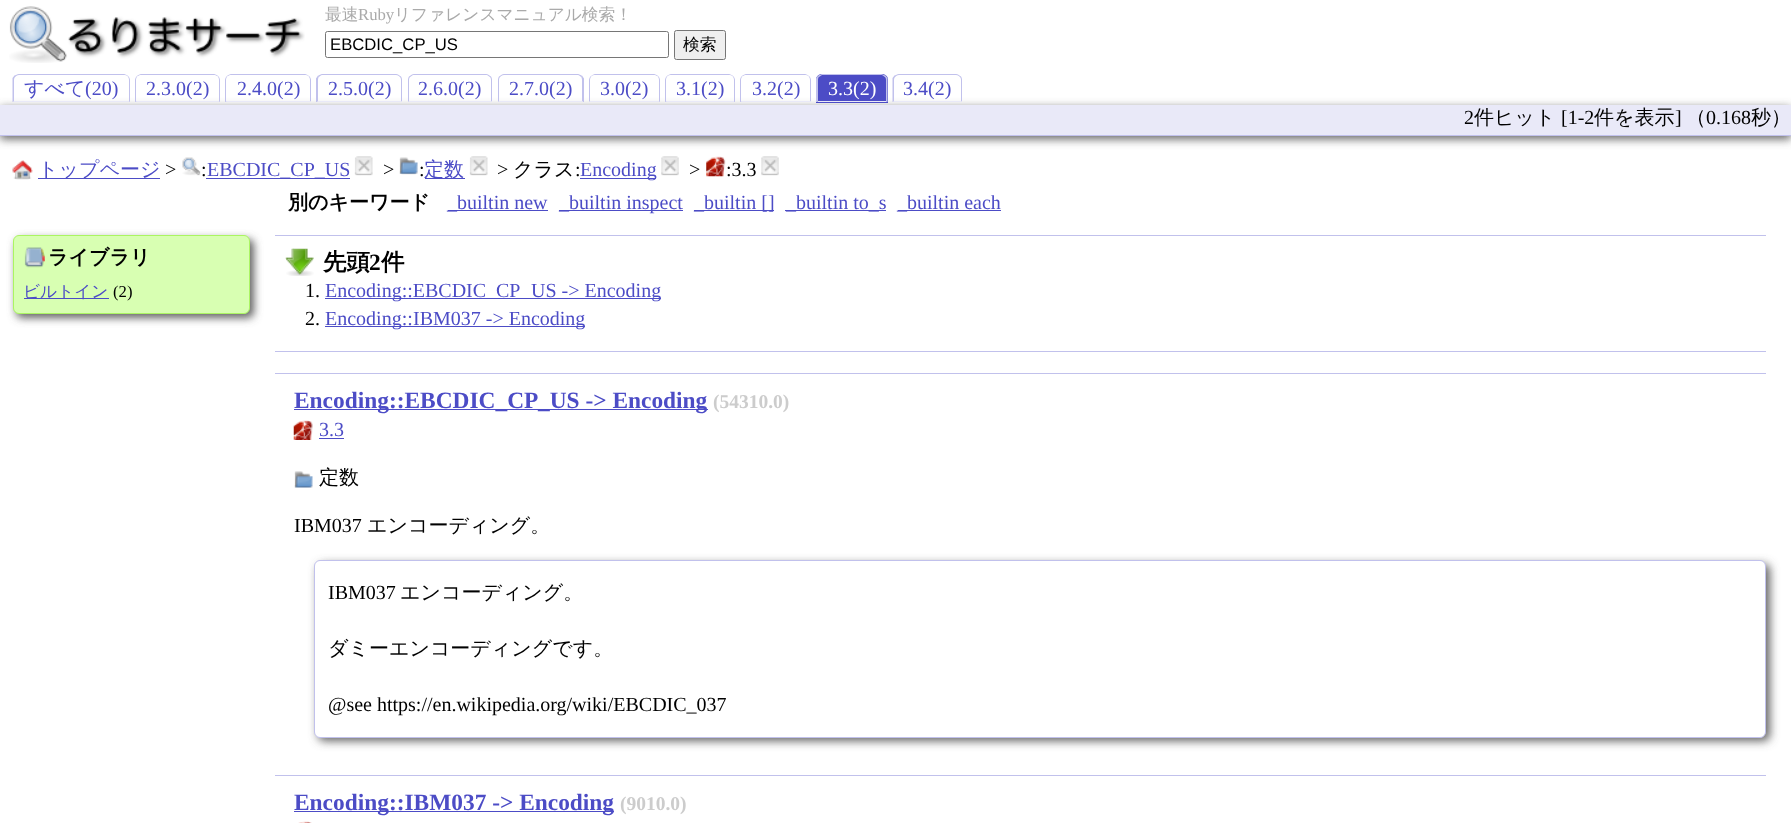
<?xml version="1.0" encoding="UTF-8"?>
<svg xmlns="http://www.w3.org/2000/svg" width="1791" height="823">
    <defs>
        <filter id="blur1" x="-50%" y="-200%" width="200%" height="500%"><feGaussianBlur stdDeviation="5"/></filter>
        <filter id="blur2" x="-50%" y="-200%" width="200%" height="500%"><feGaussianBlur stdDeviation="4"/></filter>
    </defs>
    <rect width="100%" height="100%" fill="#FFFFFF"/>
    <image x="9" y="6" width="296" height="57" href="img_01.png"/>
    <text x="325" y="20" font-family="WenQuanYi Zen Hei" font-size="16.7" font-weight="500" fill="#AAAAAA">最速</text>
    <text x="358" y="20" font-family="Liberation Serif" font-size="16.7" fill="#AAAAAA">Ruby</text>
    <text x="394" y="20" font-family="WenQuanYi Zen Hei" font-size="16.7" font-weight="500" fill="#AAAAAA">リファレンスマニュアル検索！</text>
    <rect x="325.5" y="31.5" width="343" height="26" rx="2" fill="none" stroke="#767676"/>
    <text x="330" y="50" font-family="Liberation Sans" font-size="16.7" fill="#000000">EBCDIC_CP_US</text>
    <rect x="674.5" y="30.5" width="51" height="29" rx="2" fill="#EFEFEF" stroke="#767676"/>
    <text x="683" y="50" font-family="WenQuanYi Zen Hei" font-size="16.7" font-weight="500" fill="#000000">検索</text>
    <rect x="0" y="108" width="1791" height="31" fill="#646464" filter="url(#blur1)"/>
    <text x="24" y="95" font-family="WenQuanYi Zen Hei" font-size="20" font-weight="500" fill="#4C4CC6">すべて</text>
    <path d="M 19 74 C 17 74 16 75 14 76 L 15 77 C 16 76 17 75 19 75 H 124 C 125 75 127 75 127 76 H 128 C 127 75 125 74 124 74 Z" fill="#C1C1EC"/>
    <path d="M 128 76 C 129 77 130 78.5 130 80 V 102 H 129.5 L 128.5 101 H 129 V 80 C 129 78.5 128.5 77 127.5 76.5 Z" fill="#C1C1EC"/>
    <path d="M 130 102 H 13 L 14 101 H 128 Z" fill="#E9E9F8"/>
    <path d="M 12.5 78 L 14.5 75.5 L 15.5 76.5 C 14.5 77.5 14 78.5 14 80 V 101 L 13 102 H 12.5 Z" fill="#C1C1EC"/>
    <text x="85" y="95" font-family="Liberation Serif" font-size="20" fill="#4C4CC6">(20)</text>
    <text x="146" y="95" font-family="Liberation Serif" font-size="20" fill="#4C4CC6">2.3.0(2)</text>
    <path d="M 141 74 C 140 74 138 75 137 76 H 138 L 140 75 H 215 L 217 76 H 218 C 217 75 215 74 214 74 Z" fill="#C1C1EC"/>
    <path d="M 218 76 C 219 77 220 78.5 220 80 V 102 H 219.5 L 218.5 101 H 219 V 80 C 219 78.5 218.5 77 217.5 76.5 Z" fill="#C1C1EC"/>
    <path d="M 220 102 H 136 V 101 H 218 Z" fill="#E9E9F8"/>
    <path d="M 135 80 V 102 H 135.5 L 136.5 101 H 136 V 80 C 136 78.5 136.5 77 137.5 76.5 L 137 76 C 136 77 135 78.5 135 80 Z" fill="#C1C1EC"/>
    <text x="237" y="95" font-family="Liberation Serif" font-size="20" fill="#4C4CC6">2.4.0(2)</text>
    <path d="M 231 74 C 230 74 228 75 227 76 H 228 L 230 75 H 306 L 309 76 C 308 75 306 74 305 74 Z" fill="#C1C1EC"/>
    <path d="M 310 101 L 311 102 V 80 C 311 78.5 310 77 309 76 L 308.5 76.5 C 309.5 77 310 78.5 310 80 Z" fill="#C1C1EC"/>
    <path d="M 311 102 H 226 V 101 H 310 Z" fill="#E9E9F8"/>
    <path d="M 225 80 V 102 H 225.5 L 226.5 101 H 226 V 80 C 226 78.5 226.5 77 227.5 76.5 L 227 76 C 226 77 225 78.5 225 80 Z" fill="#C1C1EC"/>
    <text x="328" y="95" font-family="Liberation Serif" font-size="20" fill="#4C4CC6">2.5.0(2)</text>
    <path d="M 322 74 C 321 74 319 75 318 76 L 319 77 C 320 76 321 75 322 75 H 396 C 398 75 399 76 400 77 V 76 C 399 75 398 74 396 74 Z" fill="#C1C1EC"/>
    <path d="M 402 102 V 80 C 402 78.5 401.5 77 400.5 76 L 399.5 76.5 C 400.5 77.5 401 78.5 401 80 V 101 Z" fill="#C1C1EC"/>
    <path d="M 402 102 L 401 101 H 318 L 317 102 Z" fill="#E9E9F8"/>
    <path d="M 316 78.5 C 316.5 77.5 317.5 76.5 318 75.5 L 319 76.5 C 318.5 77.5 318 78.5 318 80 V 101 L 317 102 H 316 Z" fill="#C1C1EC"/>
    <text x="418" y="95" font-family="Liberation Serif" font-size="20" fill="#4C4CC6">2.6.0(2)</text>
    <path d="M 414 74 C 412 74 411 75 410 76 V 77 L 413 75 H 487 L 490 77 V 76 C 489 75 488 74 486 74 Z" fill="#C1C1EC"/>
    <path d="M 492 102 V 80 C 492 78.5 491.5 77 490.5 76 L 489.5 76.5 C 490.5 77.5 491 78.5 491 80 V 101 Z" fill="#C1C1EC"/>
    <path d="M 492 102 L 491 101 H 409 L 408 102 Z" fill="#E9E9F8"/>
    <path d="M 409.5 76 C 408.5 77 408 78.5 408 80 V 102 L 409 101 V 80 C 409 78.5 409.5 77.5 410.5 76.5 Z" fill="#C1C1EC"/>
    <text x="509" y="95" font-family="Liberation Serif" font-size="20" fill="#4C4CC6">2.7.0(2)</text>
    <path d="M 504 74 C 502 74 501 75 500 76 V 77 C 501 76 502 75 504 75 H 578 C 579 75 580 76 581 77 L 582 76 C 581 75 579 74 578 74 Z" fill="#C1C1EC"/>
    <path d="M 582 75.5 C 582.5 76.5 583.5 77.5 584 78.5 V 102 H 583 L 582 101 V 80 C 582 78.5 581.5 77.5 581 76.5 Z" fill="#C1C1EC"/>
    <path d="M 583 102 H 498 L 499 101 H 582 Z" fill="#E9E9F8"/>
    <path d="M 499.5 76 C 498.5 77 498 78.5 498 80 V 102 L 499 101 V 80 C 499 78.5 499.5 77.5 500.5 76.5 Z" fill="#C1C1EC"/>
    <text x="600" y="95" font-family="Liberation Serif" font-size="20" fill="#4C4CC6">3.0(2)</text>
    <path d="M 595 74 C 594 74 592 75 591 76 L 594 75 H 655 L 657 76 H 658 C 657 75 655 74 654 74 Z" fill="#C1C1EC"/>
    <path d="M 658 76 C 659 77 660 78.5 660 80 V 102 H 659.5 L 658.5 101 H 659 V 80 C 659 78.5 658.5 77 657.5 76.5 Z" fill="#C1C1EC"/>
    <path d="M 660 102 H 589 L 590 101 H 658 Z" fill="#E9E9F8"/>
    <path d="M 591 76 C 590 77 589 78.5 589 80 V 102 L 590 101 V 80 C 590 78.5 590.5 77 591.5 76.5 Z" fill="#C1C1EC"/>
    <text x="676" y="95" font-family="Liberation Serif" font-size="20" fill="#4C4CC6">3.1(2)</text>
    <path d="M 671 74 C 670 74 668 75 667 76 H 668 C 668 75 670 75 671 75 H 729 C 730 75 732 75 732 76 H 733 C 732 75 730 74 729 74 Z" fill="#C1C1EC"/>
    <path d="M 733 76 C 734 77 735 78.5 735 80 V 102 H 734.5 L 733.5 101 H 734 V 80 C 734 78.5 733.5 77 732.5 76.5 Z" fill="#C1C1EC"/>
    <rect x="666" y="101" width="68" height="1" fill="#E9E9F8"/>
    <path d="M 665 80 V 102 H 665.5 L 666.5 101 H 666 V 80 C 666 78.5 666.5 77 667.5 76.5 L 667 76 C 666 77 665 78.5 665 80 Z" fill="#C1C1EC"/>
    <text x="752" y="95" font-family="Liberation Serif" font-size="20" fill="#4C4CC6">3.2(2)</text>
    <path d="M 746 74 C 745 74 743 75 742 76 H 743 L 745 75 H 806 L 809 76 C 808 75 806 74 805 74 Z" fill="#C1C1EC"/>
    <path d="M 810 101 L 811 102 V 80 C 811 78.5 810 77 809 76 L 808.5 76.5 C 809.5 77 810 78.5 810 80 Z" fill="#C1C1EC"/>
    <path d="M 811 102 H 740 L 742 101 H 810 Z" fill="#E9E9F8"/>
    <path d="M 740 80 V 102 H 740.5 L 741.5 101 H 741 V 80 C 741 78.5 741.5 77 742.5 76.5 L 742 76 C 741 77 740 78.5 740 80 Z" fill="#C1C1EC"/>
    <path d="M 822 74 H 882 C 885.5 74 888 76.5 888 80 V 103 H 816 V 80 C 816 76.5 818.5 74 822 74 Z" fill="#4C4CC6"/>
    <text x="828" y="95" font-family="Liberation Serif" font-size="20" fill="#FFFFFF">3.3(2)</text>
    <path d="M 822 74 C 821 74 819 75 818 76 L 819 77 L 822 75 H 882 L 885 77 L 886 76 C 884 75 883 74 881 74 Z" fill="#C1C1EC"/>
    <path d="M 885.5 75.5 L 887.5 78 V 102 H 887 L 886 101 V 80 C 886 78.5 885.5 77.5 884.5 76.5 Z" fill="#C1C1EC"/>
    <path d="M 887 102 H 817 L 818 101 H 886 Z" fill="#E9E9F8"/>
    <path d="M 816 78.5 C 816.5 77.5 817.5 76.5 818 75.5 L 819 76.5 C 818.5 77.5 818 78.5 818 80 V 101 L 817 102 H 816 Z" fill="#C1C1EC"/>
    <text x="903" y="95" font-family="Liberation Serif" font-size="20" fill="#4C4CC6">3.4(2)</text>
    <path d="M 899 74 C 897 74 896 75 894 76 L 895 77 C 896 76 897 75 899 75 H 956 C 958 75 959 76 960 77 V 76 C 959 75 958 74 956 74 Z" fill="#C1C1EC"/>
    <path d="M 962 102 V 80 C 962 78.5 961.5 77 960.5 76 L 959.5 76.5 C 960.5 77.5 961 78.5 961 80 V 101 Z" fill="#C1C1EC"/>
    <path d="M 962 102 L 961 101 H 894 L 893 102 Z" fill="#E9E9F8"/>
    <path d="M 892.5 78 L 894.5 75.5 L 895.5 76.5 C 894.5 77.5 894 78.5 894 80 V 101 L 893 102 H 892.5 Z" fill="#C1C1EC"/>
    <rect x="0" y="105" width="1791" height="30" fill="#E9E9F8"/>
    <rect x="0" y="135" width="1791" height="1" fill="#C1C1EC"/>
    <text x="1464" y="124" font-family="Liberation Serif" font-size="20" fill="#000000">2</text>
    <text x="1474" y="124" font-family="WenQuanYi Zen Hei" font-size="20" font-weight="500" fill="#000000">件ヒット</text>
    <text x="1561" y="124" font-family="Liberation Serif" font-size="20" fill="#000000">[1-2</text>
    <text x="1594" y="124" font-family="WenQuanYi Zen Hei" font-size="20" font-weight="500" fill="#000000">件を表示</text>
    <text x="1675" y="124" font-family="Liberation Serif" font-size="20" fill="#000000">]</text>
    <text x="1686" y="124" font-family="WenQuanYi Zen Hei" font-size="20" font-weight="500" fill="#000000">（</text>
    <text x="1706" y="124" font-family="Liberation Serif" font-size="20" fill="#000000">0.168</text>
    <text x="1751" y="124" font-family="WenQuanYi Zen Hei" font-size="20" font-weight="500" fill="#000000">秒）</text>
    <image x="12" y="160" width="21" height="20" href="img_02.png"/>
    <rect x="38" y="178" width="122" height="1" fill="#4C4CC6"/>
    <text x="38" y="176" font-family="WenQuanYi Zen Hei" font-size="20" font-weight="500" fill="#4C4CC6">トップページ</text>
    <text x="165" y="176" font-family="Liberation Serif" font-size="20" fill="#000000">&gt;</text>
    <image x="182" y="157" width="19" height="19" href="img_03.png"/>
    <text x="201" y="176" font-family="Liberation Serif" font-size="20" fill="#000000">:</text>
    <rect x="206" y="178" width="144" height="1" fill="#4C4CC6"/>
    <text x="207" y="176" font-family="Liberation Serif" font-size="20" fill="#4C4CC6">EBCDIC_CP_US</text>
    <image x="354" y="156" width="19" height="20" href="img_04.png"/>
    <text x="383" y="176" font-family="Liberation Serif" font-size="20" fill="#000000">&gt;</text>
    <image x="399" y="157" width="19" height="18" href="img_05.png"/>
    <text x="419" y="176" font-family="Liberation Serif" font-size="20" fill="#000000">:</text>
    <rect x="425" y="178" width="40" height="1" fill="#4C4CC6"/>
    <text x="424" y="176" font-family="WenQuanYi Zen Hei" font-size="20" font-weight="500" fill="#4C4CC6">定数</text>
    <image x="469" y="156" width="19" height="20" href="img_06.png"/>
    <text x="497" y="176" font-family="Liberation Serif" font-size="20" fill="#000000">&gt;</text>
    <text x="513" y="176" font-family="WenQuanYi Zen Hei" font-size="20" font-weight="500" fill="#000000">クラス</text>
    <text x="575" y="176" font-family="Liberation Serif" font-size="20" fill="#000000">:</text>
    <rect x="580" y="178" width="76" height="1" fill="#4C4CC6"/>
    <text x="580" y="176" font-family="Liberation Serif" font-size="20" fill="#4C4CC6">Encoding</text>
    <image x="661" y="156" width="18" height="20" href="img_07.png"/>
    <text x="689" y="176" font-family="Liberation Serif" font-size="20" fill="#000000">&gt;</text>
    <image x="706" y="156" width="20" height="21" href="img_08.png"/>
    <text x="726" y="176" font-family="Liberation Serif" font-size="20" fill="#000000">:3.3</text>
    <image x="761" y="156" width="18" height="20" href="img_09.png"/>
    <text x="288" y="209" font-family="WenQuanYi Zen Hei" font-size="20" font-weight="700" fill="#000000">別のキーワード</text>
    <rect x="448" y="210" width="100" height="1" fill="#4C4CC6"/>
    <text x="447" y="209" font-family="Liberation Serif" font-size="20" fill="#4C4CC6">_builtin new</text>
    <rect x="559" y="210" width="124" height="1" fill="#4C4CC6"/>
    <text x="559" y="209" font-family="Liberation Serif" font-size="20" fill="#4C4CC6">_builtin inspect</text>
    <rect x="694" y="210" width="80" height="1" fill="#4C4CC6"/>
    <text x="694" y="209" font-family="Liberation Serif" font-size="20" fill="#4C4CC6">_builtin []</text>
    <rect x="785" y="210" width="101" height="1" fill="#4C4CC6"/>
    <text x="786" y="209" font-family="Liberation Serif" font-size="20" fill="#4C4CC6">_builtin to_s</text>
    <rect x="898" y="210" width="103" height="1" fill="#4C4CC6"/>
    <text x="897" y="209" font-family="Liberation Serif" font-size="20" fill="#4C4CC6">_builtin each</text>
    <rect x="16" y="239" width="238" height="79" rx="6" fill="#646464" filter="url(#blur2)"/>
    <rect x="13.5" y="235.5" width="236" height="78" rx="5.5" fill="#D8FFB2" stroke="#ABF562"/>
    <image x="24" y="247" width="21" height="21" href="img_10.png"/>
    <text x="48" y="264" font-family="WenQuanYi Zen Hei" font-size="20" font-weight="700" fill="#000000">ライブラリ</text>
    <rect x="24" y="298" width="85" height="1" fill="#4C4CC6"/>
    <text x="23" y="297" font-family="WenQuanYi Zen Hei" font-size="16.7" font-weight="500" fill="#4C4CC6">ビルトイン</text>
    <text x="113" y="297" font-family="Liberation Serif" font-size="16.7" fill="#000000">(2)</text>
    <rect x="275" y="235" width="1491" height="1" fill="#C1C1EC"/>
    <rect x="275" y="351" width="1491" height="1" fill="#C1C1EC"/>
    <image x="285" y="248" width="29" height="28" href="img_11.png"/>
    <text x="323" y="270" font-family="WenQuanYi Zen Hei" font-size="23.4" font-weight="700" fill="#000000">先頭</text>
    <text x="369" y="270" font-family="Liberation Serif" font-size="23.4" font-weight="700" fill="#000000">2</text>
    <text x="381" y="270" font-family="WenQuanYi Zen Hei" font-size="23.4" font-weight="700" fill="#000000">件</text>
    <text x="305" y="297" font-family="Liberation Serif" font-size="20" fill="#000000">1.</text>
    <rect x="325" y="298" width="76" height="1" fill="#4C4CC6"/>
    <text x="325" y="297" font-family="Liberation Serif" font-size="20" fill="#4C4CC6">Encoding::EBCDIC</text>
    <rect x="401" y="298" width="260" height="1" fill="#4C4CC6"/>
    <text x="496" y="297" font-family="Liberation Serif" font-size="20" fill="#4C4CC6">CP</text>
    <text x="531" y="297" font-family="Liberation Serif" font-size="20" fill="#4C4CC6">US -&gt; Encoding</text>
    <text x="305" y="325" font-family="Liberation Serif" font-size="20" fill="#000000">2.</text>
    <rect x="325" y="326" width="76" height="1" fill="#4C4CC6"/>
    <text x="325" y="325" font-family="Liberation Serif" font-size="20" fill="#4C4CC6">Encoding::</text>
    <rect x="401" y="326" width="184" height="1" fill="#4C4CC6"/>
    <text x="413" y="325" font-family="Liberation Serif" font-size="20" fill="#4C4CC6">IBM037 -&gt; Encoding</text>
    <rect x="275" y="373" width="1491" height="1" fill="#C1C1EC"/>
    <rect x="294" y="409" width="212" height="1" fill="#4C4CC6"/>
    <text x="294" y="408" font-family="Liberation Serif" font-size="23.4" font-weight="700" fill="#4C4CC6">Encoding::EBCDIC_CP</text>
    <rect x="506" y="409" width="202" height="1" fill="#4C4CC6"/>
    <text x="538" y="408" font-family="Liberation Serif" font-size="23.4" font-weight="700" fill="#4C4CC6">_US -&gt; Encoding</text>
    <text x="713" y="408" font-family="Liberation Serif" font-size="19.5" font-weight="700" fill="#CCCCCC">(54310.0)</text>
    <image x="293" y="420" width="20" height="20" href="img_12.png"/>
    <text x="319" y="436" font-family="Liberation Serif" font-size="20" fill="#4C4CC6">3.3</text>
    <rect x="319" y="438" width="25" height="1" fill="#4C4CC6"/>
    <image x="294" y="471" width="19" height="17" href="img_13.png"/>
    <text x="319" y="484" font-family="WenQuanYi Zen Hei" font-size="20" font-weight="500" fill="#000000">定数</text>
    <text x="294" y="532" font-family="Liberation Serif" font-size="20" fill="#000000">IBM037</text>
    <text x="367" y="532" font-family="WenQuanYi Zen Hei" font-size="20" font-weight="500" fill="#000000">エンコーディング。</text>
    <rect x="318" y="564" width="1452" height="177" rx="6" fill="#646464" filter="url(#blur1)"/>
    <rect x="314.5" y="560.5" width="1451" height="177" rx="5.5" fill="#FFFFFF" stroke="#C1C1EC"/>
    <text x="328" y="599" font-family="Liberation Serif" font-size="20" fill="#000000">IBM037</text>
    <text x="400" y="599" font-family="WenQuanYi Zen Hei" font-size="20" font-weight="500" fill="#000000">エンコーディング。</text>
    <text x="328" y="655" font-family="WenQuanYi Zen Hei" font-size="20" font-weight="500" fill="#000000">ダミーエンコーディングです。</text>
    <text x="328" y="711" font-family="Liberation Serif" font-size="20" fill="#000000">@see https://en.wikipedia.org/wiki/EBCDIC_037</text>
    <rect x="275" y="775" width="1491" height="1" fill="#C1C1EC"/>
    <rect x="294" y="811" width="320" height="1" fill="#4C4CC6"/>
    <text x="294" y="810" font-family="Liberation Serif" font-size="23.4" font-weight="700" fill="#4C4CC6">Encoding::IBM037 -&gt; Encoding</text>
    <text x="620" y="810" font-family="Liberation Serif" font-size="19.5" font-weight="700" fill="#CCCCCC">(9010.0)</text>
    <image x="298" y="821" width="14" height="2" href="img_14.png"/>
</svg>
